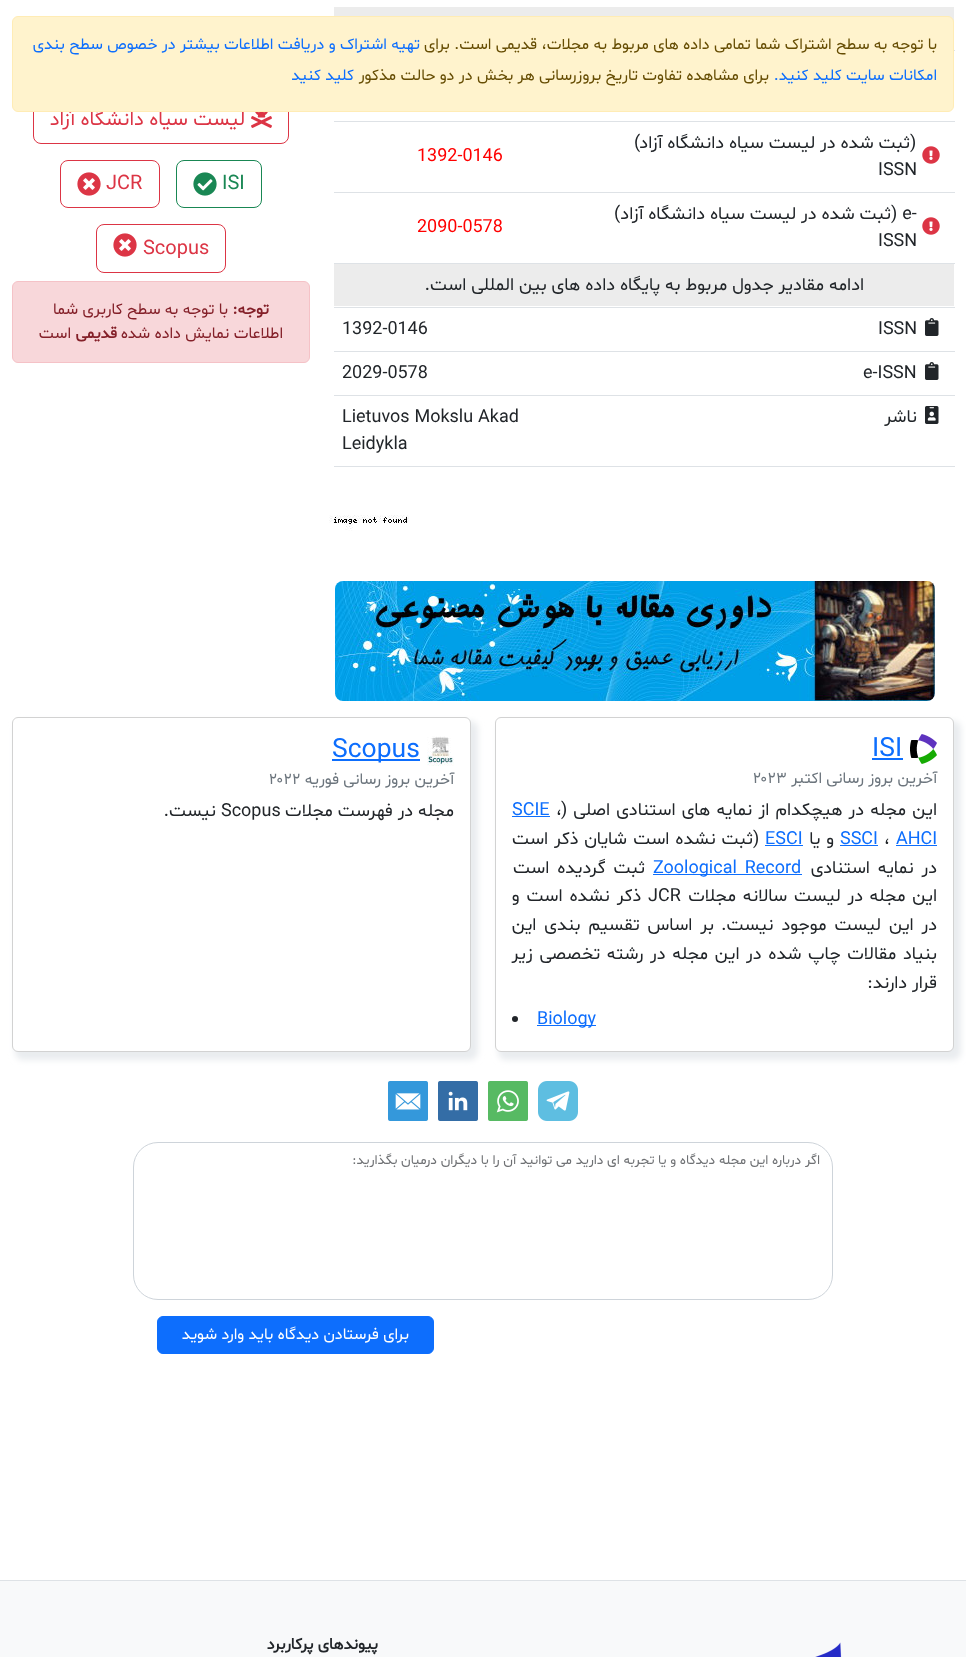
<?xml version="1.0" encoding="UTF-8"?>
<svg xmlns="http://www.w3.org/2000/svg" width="966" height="1657">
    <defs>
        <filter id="blur1" x="-50%" y="-200%" width="200%" height="500%"><feGaussianBlur stdDeviation="3"/></filter>
    </defs>
    <rect width="100%" height="100%" fill="#FFFFFF"/>
    <rect x="334" y="7" width="620" height="15" fill="#ECECEC"/>
    <rect x="33.5" y="95.5" width="255" height="48" rx="7.5" fill="none" stroke="#DC3545"/>
    <text x="245" y="125" font-family="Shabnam" font-size="20" direction="rtl" fill="#DC3545">لیست سیاه دانشگاه آزاد</text>
    <rect x="12.5" y="16.5" width="941" height="95" rx="5.5" fill="#FFF3CD" stroke="#FFECB5"/>
    <text x="937" y="49" font-family="Shabnam" font-size="16" direction="rtl" fill="#664D03">با توجه به سطح اشتراک شما تمامی داده های مربوط به مجلات، قدیمی است. برای</text>
    <text x="420" y="49" font-family="Shabnam" font-size="16" direction="rtl" fill="#0D6EFD">تهیه اشتراک و دریافت اطلاعات بیشتر در خصوص سطح بندی</text>
    <text x="937" y="80" font-family="Shabnam" font-size="16" direction="rtl" fill="#0D6EFD">امکانات سایت کلید کنید.</text>
    <text x="769" y="80" font-family="Shabnam" font-size="16" direction="rtl" fill="#664D03">برای مشاهده تفاوت تاریخ بروزرسانی هر بخش در دو حالت مذکور</text>
    <text x="354" y="80" font-family="Shabnam" font-size="16" direction="rtl" fill="#0D6EFD">کلید کنید</text>
    <rect x="954" y="50" width="1" height="1" fill="#DEE2E6"/>
    <rect x="334" y="121" width="621" height="1" fill="#DEE2E6"/>
    <rect x="334" y="192" width="621" height="1" fill="#DEE2E6"/>
    <image x="922" y="146" width="18" height="18" href="img_01.png"/>
    <text x="910" y="148" font-family="Shabnam" font-size="18" fill="#212529">)</text>
    <text x="910" y="148" font-family="Shabnam" font-size="18" direction="rtl" fill="#212529">ثبت شده در لیست سیاه دانشگاه آزاد</text>
    <text x="634" y="148" font-family="Shabnam" font-size="18" fill="#212529">(</text>
    <text x="878" y="175" font-family="Shabnam" font-size="18" fill="#212529">ISSN</text>
    <text x="417" y="161" font-family="Shabnam" font-size="18" fill="#FF0000">1392-0146</text>
    <rect x="334" y="263" width="621" height="1" fill="#DEE2E6"/>
    <image x="922" y="217" width="18" height="18" href="img_01.png"/>
    <text x="891" y="219" font-family="Shabnam" font-size="18" fill="#212529">) e-</text>
    <text x="891" y="219" font-family="Shabnam" font-size="18" direction="rtl" fill="#212529">ثبت شده در لیست سیاه دانشگاه آزاد</text>
    <text x="614" y="219" font-family="Shabnam" font-size="18" fill="#212529">(</text>
    <text x="878" y="246" font-family="Shabnam" font-size="18" fill="#212529">ISSN</text>
    <text x="417" y="232" font-family="Shabnam" font-size="18" fill="#FF0000">2090-0578</text>
    <rect x="334" y="264" width="620" height="42" fill="#ECECEC"/>
    <rect x="334" y="307" width="621" height="1" fill="#DEE2E6"/>
    <text x="864" y="290" font-family="Shabnam" font-size="18" direction="rtl" fill="#212529">ادامه مقادیر جدول مربوط به پایگاه داده های بین المللی است.</text>
    <rect x="334" y="351" width="621" height="1" fill="#DEE2E6"/>
    <image x="925" y="318" width="14" height="18" href="img_02.png"/>
    <text x="878" y="334" font-family="Shabnam" font-size="18" fill="#212529">ISSN</text>
    <text x="342" y="334" font-family="Shabnam" font-size="18" fill="#212529">1392-0146</text>
    <rect x="334" y="395" width="621" height="1" fill="#DEE2E6"/>
    <image x="925" y="362" width="14" height="18" href="img_02.png"/>
    <text x="863" y="378" font-family="Shabnam" font-size="18" fill="#212529">e-ISSN</text>
    <text x="342" y="378" font-family="Shabnam" font-size="18" fill="#212529">2029-0578</text>
    <rect x="334" y="466" width="621" height="1" fill="#DEE2E6"/>
    <image x="925" y="406" width="14" height="18" href="img_03.png"/>
    <text x="917" y="422" font-family="Shabnam" font-size="18" direction="rtl" fill="#212529">ناشر</text>
    <text font-family="Shabnam" font-size="18" fill="#212529">
        <tspan x="342" y="422">Lietuvos Mokslu Akad</tspan>
        <tspan x="342" y="449">Leidykla</tspan>
    </text>
    <image x="251" y="112" width="21" height="16" href="img_04.png"/>
    <rect x="176.5" y="160.5" width="85" height="47" rx="7.5" fill="none" stroke="#198754"/>
    <text x="222" y="189" font-family="Shabnam" font-size="20" fill="#198754">ISI</text>
    <image x="193" y="172" width="24" height="24" href="img_05.png"/>
    <rect x="60.5" y="160.5" width="99" height="47" rx="7.5" fill="none" stroke="#DC3545"/>
    <text x="106" y="189" font-family="Shabnam" font-size="20" fill="#DC3545">JCR</text>
    <image x="77" y="172" width="24" height="24" href="img_06.png"/>
    <rect x="96.5" y="224.5" width="129" height="48" rx="7.5" fill="none" stroke="#DC3545"/>
    <text x="143" y="254" font-family="Shabnam" font-size="20" fill="#DC3545">Scopus</text>
    <image x="113" y="233" width="24" height="24" href="img_06.png"/>
    <rect x="12.5" y="281.5" width="297" height="81" rx="5.5" fill="#F8D7DA" stroke="#F5C2C7"/>
    <text x="269" y="314" font-family="Shabnam" font-size="16" font-weight="700" direction="rtl" fill="#842029">توجه:</text>
    <text x="228" y="314" font-family="Shabnam" font-size="16" direction="rtl" fill="#842029">با توجه به سطح کاربری شما</text>
    <text x="283" y="338" font-family="Shabnam" font-size="16" direction="rtl" fill="#842029">اطلاعات نمایش داده شده</text>
    <text x="117" y="338" font-family="Shabnam" font-size="16" font-weight="700" direction="rtl" fill="#842029">قدیمی</text>
    <text x="71" y="338" font-family="Shabnam" font-size="16" direction="rtl" fill="#842029">است</text>
    <image x="329" y="515" width="80" height="16" href="img_07.png"/>
    <image x="335" y="581" width="600" height="120" href="img_08.png"/>
    <rect x="498" y="721" width="463" height="339" rx="8" fill="#E9ECEF" filter="url(#blur1)"/>
    <rect x="495.5" y="717.5" width="458" height="334" rx="5.5" fill="#FFFFFF" stroke="#D2D2D2"/>
    <image x="910" y="734" width="27" height="30" href="img_09.png"/>
    <text x="872" y="756" font-family="Shabnam" font-size="26.5" fill="#0D6EFD">ISI</text>
    <rect x="872" y="758" width="31" height="2" fill="#0D6EFD"/>
    <text x="937" y="783" font-family="Shabnam" font-size="16" direction="rtl" fill="#6C757D">آخرین بروز رسانی اکتبر</text>
    <text x="753" y="783" font-family="Shabnam" font-size="16" fill="#6C757D">۲۰۲۳</text>
    <text x="937" y="815" word-spacing="1.25" font-family="Shabnam" font-size="18" direction="rtl" fill="#212529">این مجله در هیچکدام از نمایه های استنادی اصلی (</text>
    <text x="556" y="815" font-family="Shabnam" font-size="18" fill="#212529">،</text>
    <text x="512" y="815" font-family="Shabnam" font-size="18" fill="#0D6EFD">SCIE</text>
    <rect x="512" y="816" width="38" height="1" fill="#0D6EFD"/>
    <text x="896" y="844" font-family="Shabnam" font-size="18" fill="#0D6EFD">AHCI</text>
    <rect x="896" y="845" width="41" height="1" fill="#0D6EFD"/>
    <text x="884" y="844" font-family="Shabnam" font-size="18" fill="#212529">،</text>
    <text x="840" y="844" font-family="Shabnam" font-size="18" fill="#0D6EFD">SSCI</text>
    <rect x="840" y="845" width="38" height="1" fill="#0D6EFD"/>
    <text x="834" y="844" word-spacing="1" font-family="Shabnam" font-size="18" direction="rtl" fill="#212529">و یا</text>
    <text x="765" y="844" font-family="Shabnam" font-size="18" fill="#0D6EFD">ESCI</text>
    <rect x="765" y="845" width="38" height="1" fill="#0D6EFD"/>
    <text x="753" y="844" font-family="Shabnam" font-size="18" fill="#212529">)</text>
    <text x="753" y="844" word-spacing="1" font-family="Shabnam" font-size="18" direction="rtl" fill="#212529">ثبت نشده است</text>
    <text x="627" y="844" word-spacing="1" font-family="Shabnam" font-size="18" direction="rtl" fill="#212529">شایان ذکر است</text>
    <text x="937" y="873" word-spacing="3" font-family="Shabnam" font-size="18" direction="rtl" fill="#212529">در نمایه استنادی</text>
    <rect x="653" y="874" width="149" height="1" fill="#0D6EFD"/>
    <text x="653" y="873" word-spacing="3" font-family="Shabnam" font-size="18" fill="#0D6EFD">Zoological Record</text>
    <text x="645" y="873" word-spacing="3" font-family="Shabnam" font-size="18" direction="rtl" fill="#212529">ثبت گردیده است</text>
    <text x="937" y="901" word-spacing="2" font-family="Shabnam" font-size="18" direction="rtl" fill="#212529">این مجله</text>
    <text x="863" y="901" word-spacing="2" font-family="Shabnam" font-size="18" direction="rtl" fill="#212529">در لیست سالانه مجلات</text>
    <text x="648" y="901" font-family="Shabnam" font-size="18" fill="#212529">JCR</text>
    <text x="641" y="901" word-spacing="2" font-family="Shabnam" font-size="18" direction="rtl" fill="#212529">ذکر نشده است و</text>
    <text x="937" y="930" word-spacing="3" font-family="Shabnam" font-size="18" direction="rtl" fill="#212529">در این لیست موجود نیست.</text>
    <text x="714" y="930" word-spacing="3" font-family="Shabnam" font-size="18" direction="rtl" fill="#212529">بر اساس تقسیم بندی این</text>
    <text font-family="Shabnam" font-size="18" direction="rtl" fill="#212529">
        <tspan x="937" y="959" word-spacing="1.75">بنیاد مقالات چاپ شده در این مجله در رشته تخصصی زیر</tspan>
        <tspan x="937" y="988">قرار دارند:</tspan>
    </text>
    <rect x="537" y="1025" width="59" height="1" fill="#0D6EFD"/>
    <text x="537" y="1024" font-family="Shabnam" font-size="18" fill="#0D6EFD">Biology</text>
    <circle cx="515" cy="1019" r="3" fill="#212529"/>
    <rect x="15" y="721" width="463" height="339" rx="8" fill="#E9ECEF" filter="url(#blur1)"/>
    <rect x="12.5" y="717.5" width="458" height="334" rx="5.5" fill="#FFFFFF" stroke="#D2D2D2"/>
    <image x="427" y="736" width="27" height="30" href="img_10.png"/>
    <rect x="332" y="759" width="88" height="2" fill="#0D6EFD"/>
    <text x="332" y="757" font-family="Shabnam" font-size="26.5" fill="#0D6EFD">Scopus</text>
    <text x="454" y="784" font-family="Shabnam" font-size="16" direction="rtl" fill="#6C757D">آخرین بروز رسانی فوریه</text>
    <text x="269" y="784" font-family="Shabnam" font-size="16" fill="#6C757D">۲۰۲۲</text>
    <text x="454" y="816" font-family="Shabnam" font-size="18" direction="rtl" fill="#212529">مجله در فهرست مجلات</text>
    <text x="221" y="816" font-family="Shabnam" font-size="18" fill="#212529">Scopus</text>
    <text x="216" y="816" font-family="Shabnam" font-size="18" direction="rtl" fill="#212529">نیست.</text>
    <image x="538" y="1081" width="40" height="40" href="img_11.png"/>
    <image x="488" y="1081" width="40" height="40" href="img_12.png"/>
    <image x="438" y="1081" width="40" height="40" href="img_13.png"/>
    <image x="388" y="1081" width="40" height="40" href="img_14.png"/>
    <rect x="133.5" y="1142.5" width="699" height="157" rx="24.5" fill="none" stroke="#CED4DA"/>
    <text x="820" y="1164" font-family="Shabnam" font-size="13.6" direction="rtl" fill="#6F7174">اگر درباره این مجله دیدگاه و یا تجربه ای دارید می توانید آن را با دیگران درمیان بگذارید:</text>
    <rect x="157.5" y="1316.5" width="276" height="37" rx="5.5" fill="#0D6EFD" stroke="#0D6EFD"/>
    <text x="409" y="1339" font-family="Shabnam" font-size="16" direction="rtl" fill="#FFFFFF">برای فرستادن دیدگاه باید وارد شوید</text>
    <rect x="0" y="1581" width="966" height="76" fill="#F8F9FA"/>
    <rect x="0" y="1580" width="966" height="1" fill="#DEE2E6"/>
    <image x="815" y="1642" width="27" height="15" href="img_15.png"/>
    <text x="378" y="1649" font-family="Shabnam" font-size="16" font-weight="700" direction="rtl" fill="#212529">پیوندهای پرکاربرد</text>
</svg>
